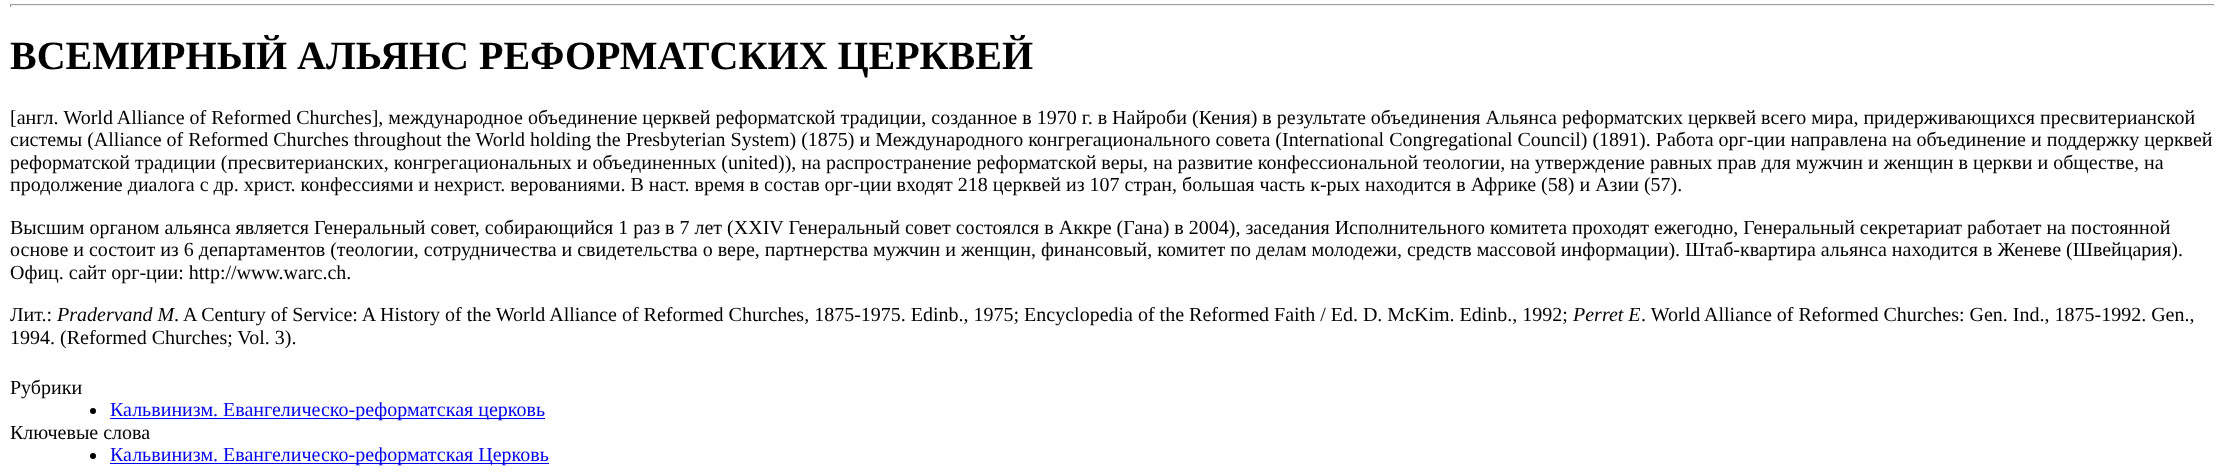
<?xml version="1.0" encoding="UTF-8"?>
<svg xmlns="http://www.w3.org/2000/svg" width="2224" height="475">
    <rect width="100%" height="100%" fill="#FFFFFF"/>
    <rect x="10" y="4" width="2205" height="1" fill="#9F9F9F"/>
    <rect x="2214" y="4" width="1" height="3" fill="#EEEEEE"/>
    <rect x="10" y="5" width="2205" height="1" fill="#EEEEEE"/>
    <rect x="10" y="4" width="1" height="3" fill="#9F9F9F"/>
    <text x="10" y="69" font-family="Liberation Serif" font-size="40" font-weight="700" fill="#000000">ВСЕМИРНЫЙ АЛЬЯНС РЕФОРМАТСКИХ ЦЕРКВЕЙ</text>
    <text font-family="Liberation Serif" font-size="20" fill="#000000">
        <tspan x="10" y="124">[англ. World Alliance of Reformed Churches], международное объединение церквей реформатской традиции, созданное в 1970 г. в Найроби (Кения) в результате объединения Альянса реформатских церквей всего мира, придерживающихся пресвитерианской</tspan>
        <tspan x="10" y="146">системы (Alliance of Reformed Churches throughout the World holding the Presbyterian System) (1875) и Международного конгрегационального совета (International Congregational Council) (1891). Работа орг-ции направлена на объединение и поддержку церквей</tspan>
        <tspan x="10" y="169">реформатской традиции (пресвитерианских, конгрегациональных и объединенных (united)), на распространение реформатской веры, на развитие конфессиональной теологии, на утверждение равных прав для мужчин и женщин в церкви и обществе, на</tspan>
        <tspan x="10" y="191">продолжение диалога с др. христ. конфессиями и нехрист. верованиями. В наст. время в состав орг-ции входят 218 церквей из 107 стран, большая часть к-рых находится в Африке (58) и Азии (57).</tspan>
    </text>
    <text font-family="Liberation Serif" font-size="20" fill="#000000">
        <tspan x="10" y="234">Высшим органом альянса является Генеральный совет, собирающийся 1 раз в 7 лет (XXIV Генеральный совет состоялся в Аккре (Гана) в 2004), заседания Исполнительного комитета проходят ежегодно, Генеральный секретариат работает на постоянной</tspan>
        <tspan x="10" y="256">основе и состоит из 6 департаментов (теологии, сотрудничества и свидетельства о вере, партнерства мужчин и женщин, финансовый, комитет по делам молодежи, средств массовой информации). Штаб-квартира альянса находится в Женеве (Швейцария).</tspan>
        <tspan x="10" y="279">Офиц. сайт орг-ции: http://www.warc.ch.</tspan>
    </text>
    <text x="10" y="321" font-family="Liberation Serif" font-size="20" fill="#000000">Лит.:</text>
    <text x="57" y="321" font-family="Liberation Serif" font-size="20" font-style="italic" fill="#000000">Pradervand M</text>
    <text x="174" y="321" font-family="Liberation Serif" font-size="20" fill="#000000">. A Century of Service: A History of the World Alliance of Reformed Churches, 1875-1975. Edinb., 1975; Encyclopedia of the Reformed Faith / Ed. D. McKim. Edinb., 1992;</text>
    <text x="1573" y="321" font-family="Liberation Serif" font-size="20" font-style="italic" fill="#000000">Perret E</text>
    <text x="1641" y="321" font-family="Liberation Serif" font-size="20" fill="#000000">. World Alliance of Reformed Churches: Gen. Ind., 1875-1992. Gen.,</text>
    <text x="10" y="344" font-family="Liberation Serif" font-size="20" fill="#000000">1994. (Reformed Churches; Vol. 3).</text>
    <text x="10" y="394" font-family="Liberation Serif" font-size="20" fill="#000000">Рубрики</text>
    <circle cx="93" cy="411" r="3" fill="#000000"/>
    <rect x="110" y="418" width="435" height="1" fill="#0000EE"/>
    <text x="110" y="416" font-family="Liberation Serif" font-size="20" fill="#0000EE">Кальвинизм. Евангелическо-реформатская церковь</text>
    <text x="10" y="439" font-family="Liberation Serif" font-size="20" fill="#000000">Ключевые слова</text>
    <circle cx="93" cy="456" r="3" fill="#000000"/>
    <rect x="110" y="463" width="439" height="1" fill="#0000EE"/>
    <text x="110" y="461" font-family="Liberation Serif" font-size="20" fill="#0000EE">Кальвинизм. Евангелическо-реформатская Церковь</text>
</svg>
